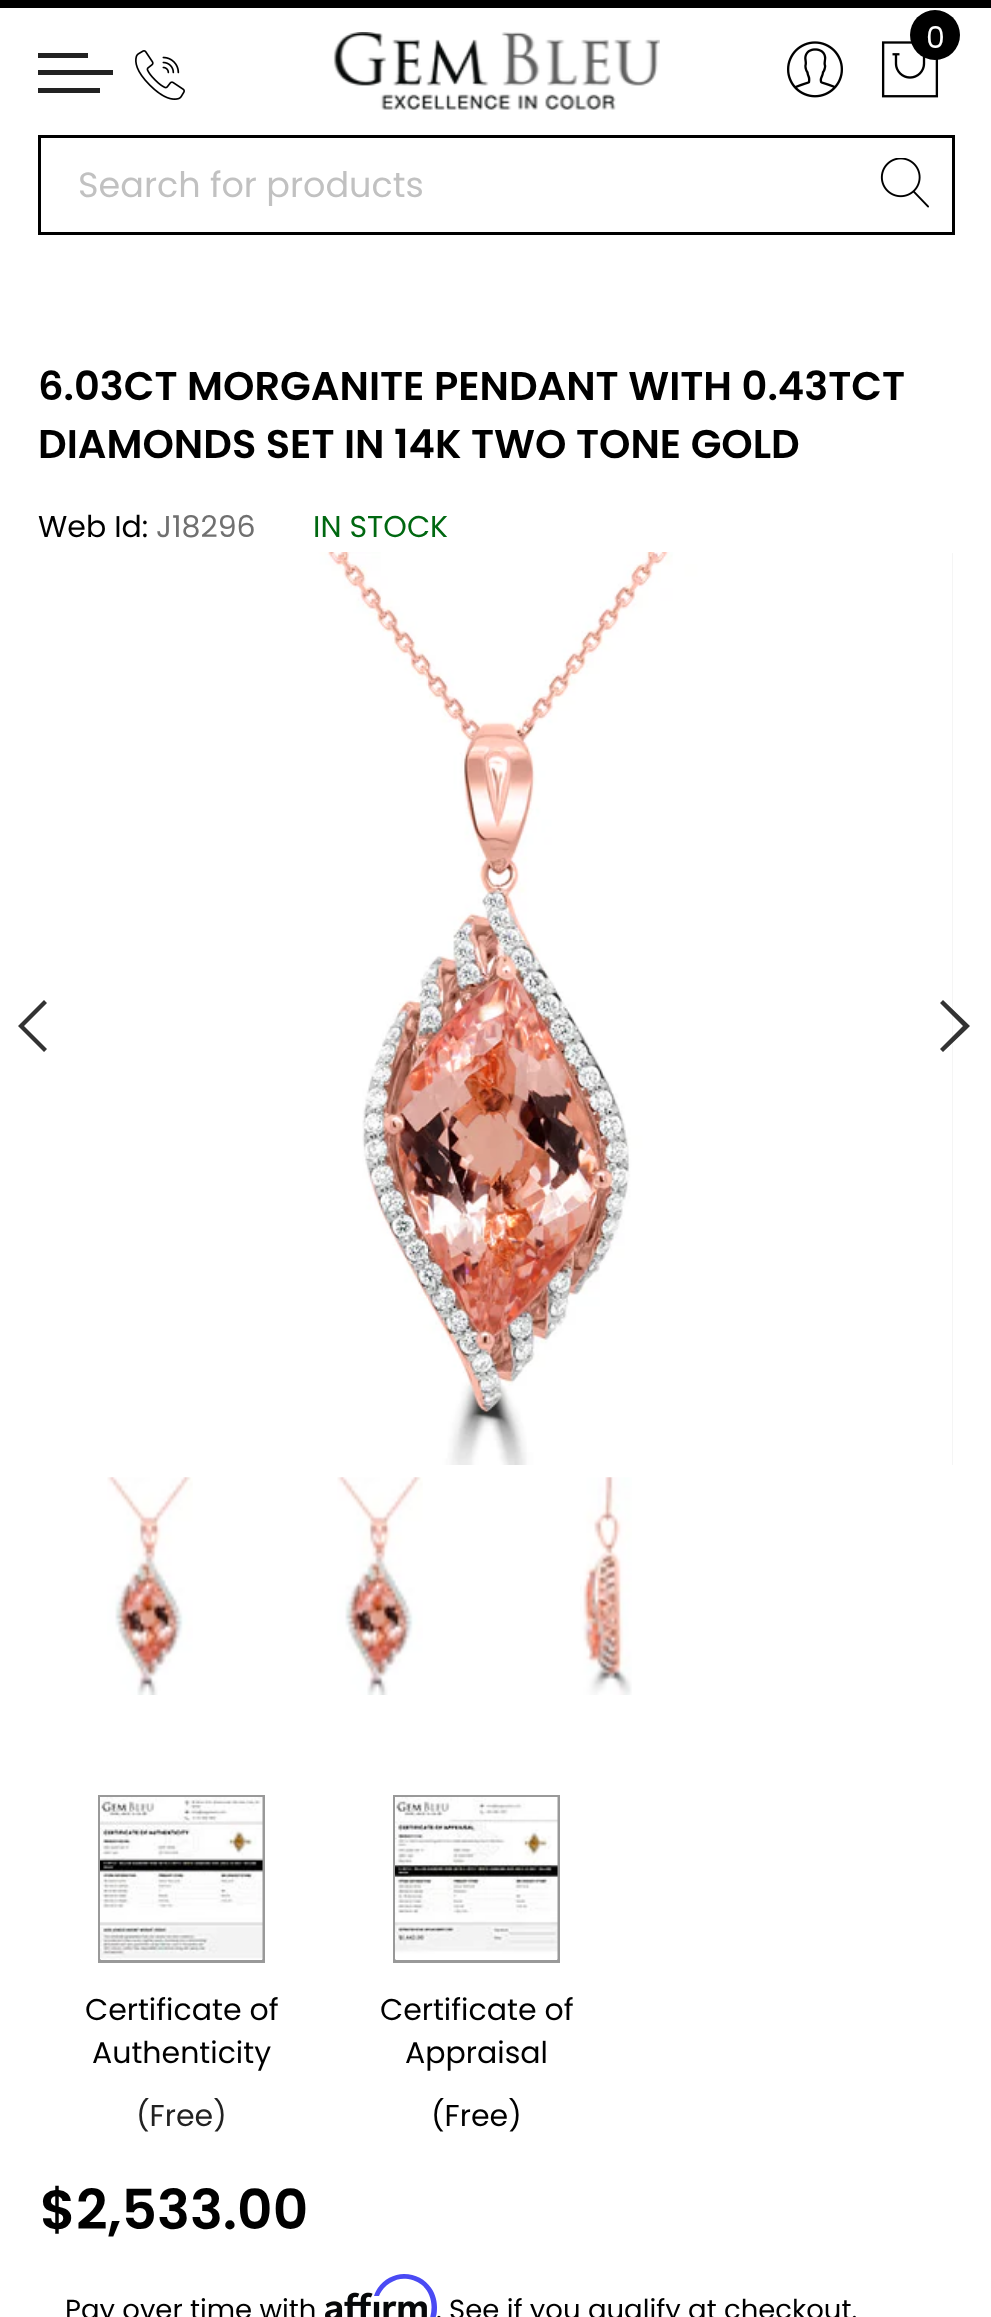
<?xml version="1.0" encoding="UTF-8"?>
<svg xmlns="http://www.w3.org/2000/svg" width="991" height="2317">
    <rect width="100%" height="100%" fill="#FFFFFF"/>
    <rect x="0" y="0" width="991" height="8" fill="#000000"/>
    <rect x="38" y="53" width="50" height="5" fill="#222222"/>
    <rect x="38" y="70" width="75" height="5" fill="#222222"/>
    <rect x="38" y="88" width="62" height="5" fill="#222222"/>
    <image x="135" y="50" width="50" height="50" href="img_01.png"/>
    <image x="333" y="32" width="327" height="78" href="img_02.png"/>
    <image x="881" y="41" width="58" height="57" href="img_03.png"/>
    <circle cx="935" cy="35" r="25" fill="#000000"/>
    <text x="926" y="48" font-family="Poppins" font-size="30" fill="#FFFFFF">0</text>
    <image x="787" y="41" width="56" height="57" href="img_04.png"/>
    <rect x="39.5" y="136.5" width="914" height="97" fill="none" stroke="#000000" stroke-width="3"/>
    <text x="78" y="197" font-family="Poppins" font-size="35" fill="#C1C1C1">Search for products</text>
    <image x="880" y="158" width="49" height="50" href="img_05.png"/>
    <text font-family="Poppins" font-size="40" font-weight="600" fill="#000000">
        <tspan x="38" y="400">6.03CT MORGANITE PENDANT WITH 0.43TCT</tspan>
        <tspan x="38" y="458">DIAMONDS SET IN 14K TWO TONE GOLD</tspan>
    </text>
    <text x="38" y="537" font-family="Poppins" font-size="30" fill="#000000">Web Id:</text>
    <text x="156" y="537" font-family="Poppins" font-size="30" fill="#707070">J18296</text>
    <text x="313" y="537" font-family="Poppins" font-size="30" fill="#006811">IN STOCK</text>
    <image x="40" y="552" width="912" height="913" href="img_06.png"/>
    <path d="M 21 1023 L 18 1026 L 44 1052 L 47 1049 L 24 1026 L 47 1003 L 44 1000 Z" fill="#333333"/>
    <rect x="952" y="553" width="1" height="912" fill="#F5F5F5"/>
    <path d="M 966 1030 L 970 1026 L 943 1000 L 940 1003 L 963 1026 L 940 1049 L 943 1052 Z" fill="#000000" fill-opacity="0.8"/>
    <image x="107" y="1477" width="86" height="218" href="img_07.png"/>
    <image x="337" y="1477" width="86" height="218" href="img_08.png"/>
    <image x="580" y="1477" width="52" height="218" href="img_09.png"/>
    <rect x="99.5" y="1796.5" width="164" height="165" fill="none" stroke="#999999" stroke-width="3"/>
    <image x="100" y="1797" width="163" height="163" href="img_10.png"/>
    <text x="85" y="2020" font-family="Poppins" font-size="30" fill="#000000">Certificate of</text>
    <text x="92" y="2063" font-family="Poppins" font-size="30" fill="#000000">Authenticity</text>
    <text x="136" y="2126" font-family="Poppins" font-size="30" fill="#222222">(Free)</text>
    <rect x="394.5" y="1796.5" width="164" height="165" fill="none" stroke="#999999" stroke-width="3"/>
    <image x="395" y="1797" width="163" height="163" href="img_11.png"/>
    <text x="380" y="2020" font-family="Poppins" font-size="30" fill="#000000">Certificate of</text>
    <text x="405" y="2063" font-family="Poppins" font-size="30" fill="#000000">Appraisal</text>
    <text x="431" y="2126" font-family="Poppins" font-size="30" fill="#000000">(Free)</text>
    <text x="40" y="2229" font-family="Poppins" font-size="55" font-weight="600" fill="#000000">$2,533.00</text>
    <text x="65" y="2319" font-family="Poppins" font-size="27.5" fill="#000000">Pay over time with</text>
    <image x="325" y="2292" width="102" height="25" href="img_12.png"/>
    <text x="436" y="2319" font-family="Poppins" font-size="27.5" fill="#000000">. See if you qualify at checkout.</text>
    <path d="M 404 2274 C 391 2274 378 2283 374 2296 H 379 C 381 2291 385 2286 390 2283 C 396 2279 402 2278 408 2279 C 428 2282 435 2301 430 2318 H 435 C 437 2316 437 2310 437 2307 C 437 2289 423 2274 404 2274 Z" fill="#4A4AF4"/>
</svg>
